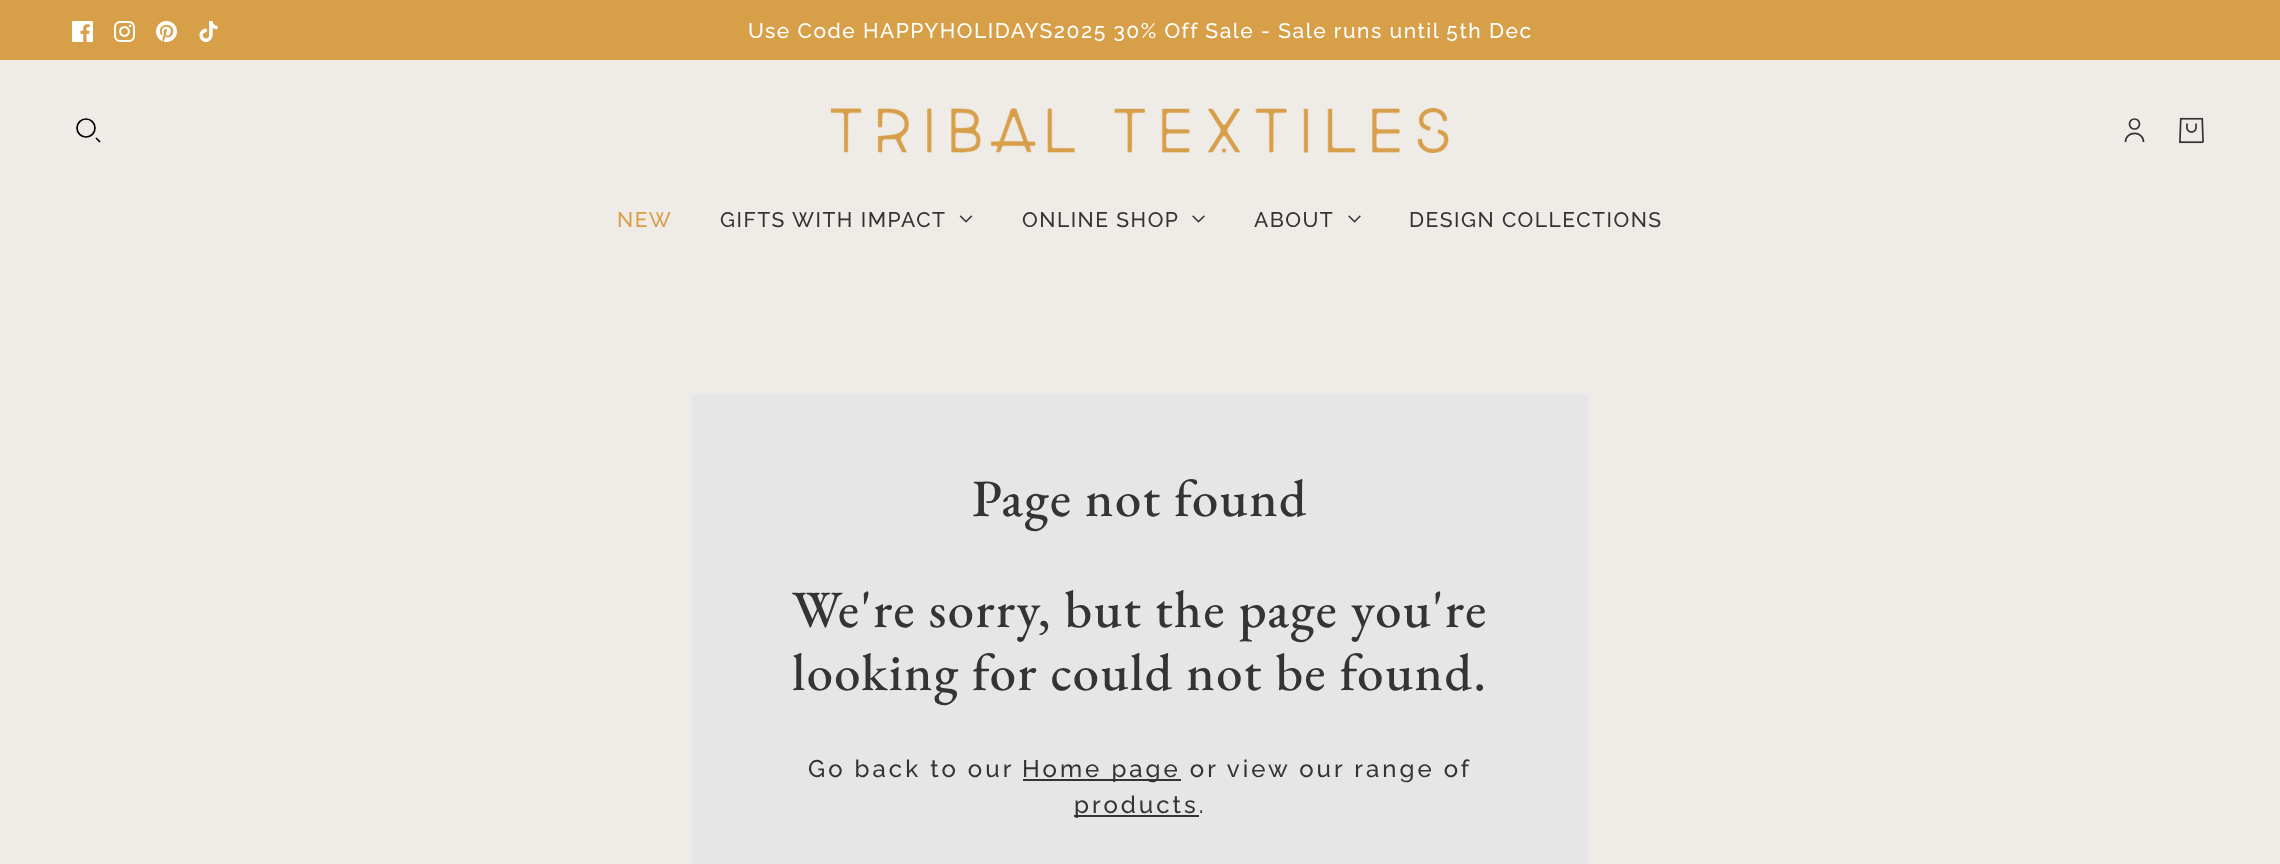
<?xml version="1.0" encoding="UTF-8"?>
<svg xmlns="http://www.w3.org/2000/svg" width="2280" height="864">
    <rect width="100%" height="100%" fill="#EFECE7"/>
    <rect x="0" y="0" width="2280" height="60" fill="#D89F49"/>
    <image x="72" y="21" width="21" height="21" href="img_01.png"/>
    <image x="114" y="21" width="21" height="21" href="img_02.png"/>
    <image x="156" y="21" width="21" height="21" href="img_03.png"/>
    <image x="199" y="21" width="19" height="21" href="img_04.png"/>
    <text x="748" y="38" font-family="Raleway" font-size="21" font-weight="500" letter-spacing="1.5" fill="#FFFFFF">Use Code HAPPYHOLIDAYS2025 30% Off Sale - Sale runs until 5th Dec</text>
    <circle cx="86" cy="128" r="9" fill="none" stroke="#000000" stroke-width="1.7"/>
    <path d="M 96 138 L 100 142" fill="none" stroke="#000000" stroke-width="1.7"/>
    <image x="830" y="108" width="619" height="45" href="img_05.png"/>
    <circle cx="2134.5" cy="124" r="5" fill="none" stroke="#343434" stroke-width="1.7"/>
    <path d="M 2125.5 142 C 2125.5 130.5 2143.5 130.5 2143.5 142" fill="none" stroke="#343434" stroke-width="1.7"/>
    <image x="2179" y="117" width="25" height="27" href="img_06.png"/>
    <text x="617" y="227" font-family="Raleway" font-size="21" font-weight="500" letter-spacing="1.5" fill="#D89F49">NEW</text>
    <text x="720" y="227" font-family="Raleway" font-size="21" font-weight="500" letter-spacing="1.5" fill="#343434">GIFTS WITH IMPACT</text>
    <image x="959" y="215" width="14" height="8" href="img_07.png"/>
    <text x="1022" y="227" font-family="Raleway" font-size="21" font-weight="500" letter-spacing="1.5" fill="#343434">ONLINE SHOP</text>
    <image x="1192" y="215" width="13" height="8" href="img_08.png"/>
    <text x="1254" y="227" font-family="Raleway" font-size="21" font-weight="500" letter-spacing="1.5" fill="#343434">ABOUT</text>
    <image x="1348" y="215" width="13" height="8" href="img_08.png"/>
    <text x="1409" y="227" font-family="Raleway" font-size="21" font-weight="500" letter-spacing="1.5" fill="#343434">DESIGN COLLECTIONS</text>
    <rect x="691" y="394" width="898" height="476" rx="4" fill="#E6E6E6" stroke="#EAEAEA" stroke-width="2"/>
    <text x="972" y="516" font-family="EB Garamond" font-size="52.5" font-weight="500" letter-spacing="1.5" fill="#343434">Page not found</text>
    <text font-family="EB Garamond" font-size="52.5" font-weight="500" letter-spacing="1.5" fill="#343434">
        <tspan x="792" y="627">We're sorry, but the page you're</tspan>
        <tspan x="792" y="690">looking for could not be found.</tspan>
    </text>
    <text x="808" y="777" font-family="Raleway" font-size="24" font-weight="500" letter-spacing="3" fill="#343434">Go back to our</text>
    <rect x="1023" y="779" width="158" height="2" fill="#343434"/>
    <text x="1022" y="777" font-family="Raleway" font-size="24" font-weight="500" letter-spacing="3" fill="#343434">Home page or view our range of</text>
    <rect x="1074" y="815" width="125" height="2" fill="#343434"/>
    <text x="1074" y="813" font-family="Raleway" font-size="24" font-weight="500" letter-spacing="3" fill="#343434">products.</text>
</svg>
